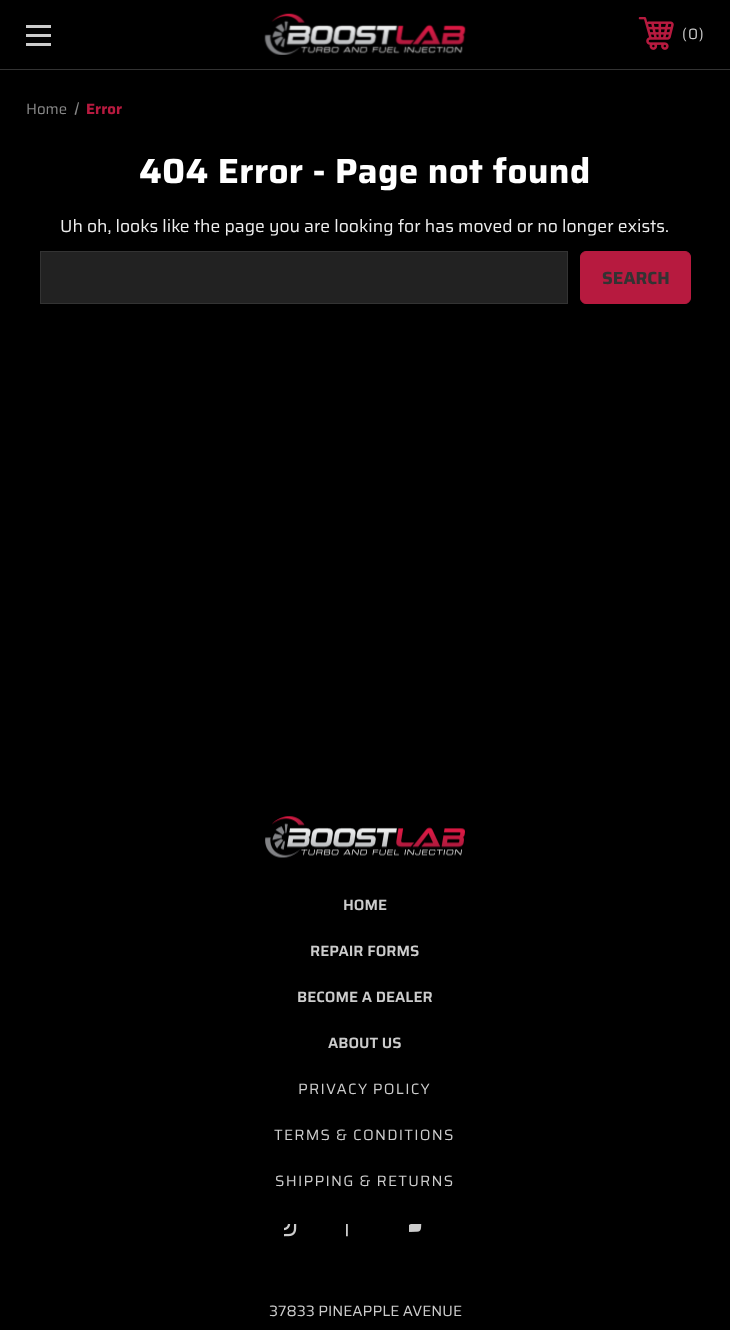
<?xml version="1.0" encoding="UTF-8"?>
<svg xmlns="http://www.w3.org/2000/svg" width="730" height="1330">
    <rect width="100%" height="100%" fill="#000000"/>
    <rect x="0" y="69" width="730" height="1" fill="#333333"/>
    <rect x="26" y="34" width="25" height="3" fill="#CCCCCC"/>
    <rect x="26" y="25" width="25" height="3" fill="#CCCCCC"/>
    <rect x="26" y="43" width="25" height="3" fill="#CCCCCC"/>
    <image x="264" y="13" width="202" height="42" href="img_01.png"/>
    <image x="638" y="17" width="36" height="33" href="img_02.png"/>
    <text x="682" y="39" font-family="Saira" font-size="15" fill="#CCCCCC">(</text>
    <text x="688" y="39" font-family="Saira" font-size="15" fill="#CCCCCC">0</text>
    <text x="699" y="39" font-family="Saira" font-size="15" fill="#CCCCCC">)</text>
    <text x="26" y="114" font-family="Saira" font-size="15" fill="#888888">Home</text>
    <path d="M 78 102 L 79 102.5 L 76 115 L 74.5 114.5 Z" fill="#888888"/>
    <text x="86" y="114" font-family="Saira" font-size="15" font-weight="700" fill="#B71A3F">Error</text>
    <text x="139" y="183" font-family="Saira" font-size="35" font-weight="700" letter-spacing="0.3" fill="#FFFFFF">404 Error - Page not found</text>
    <text x="60" y="232" font-family="Saira" font-size="17.5" fill="#EEEEEE">Uh oh, looks like the page you are looking for has moved or no longer exists.</text>
    <rect x="40.5" y="251.5" width="527" height="52" fill="#222222" stroke="#333333"/>
    <rect x="580.5" y="251.5" width="110" height="52" rx="5.5" fill="#B71A3F" stroke="#B71A3F"/>
    <text x="602" y="284" font-family="Saira" font-size="17.5" font-weight="700" fill="#333333">SEARCH</text>
    <image x="265" y="816" width="200" height="42" href="img_03.png"/>
    <text x="343" y="910" font-family="Saira" font-size="15" font-weight="600" fill="#CCCCCC">HOME</text>
    <text x="310" y="956" font-family="Saira" font-size="15" font-weight="600" fill="#CCCCCC">REPAIR FORMS</text>
    <text x="297" y="1002" font-family="Saira" font-size="15" font-weight="600" fill="#CCCCCC">BECOME A DEALER</text>
    <text x="328" y="1048" font-family="Saira" font-size="15" font-weight="600" fill="#CCCCCC">ABOUT US</text>
    <text x="298" y="1094" font-family="Saira" font-size="15" letter-spacing="1.25" fill="#CCCCCC">PRIVACY POLICY</text>
    <text x="274" y="1140" font-family="Saira" font-size="15" letter-spacing="1.25" fill="#CCCCCC">TERMS &amp; CONDITIONS</text>
    <text x="275" y="1186" font-family="Saira" font-size="15" letter-spacing="1.25" fill="#CCCCCC">SHIPPING &amp; RETURNS</text>
    <image x="284" y="1224" width="13" height="13" href="img_04.png"/>
    <image x="346" y="1224" width="2" height="13" href="img_05.png"/>
    <image x="409" y="1224" width="13" height="8" href="img_06.png"/>
    <text x="269" y="1316" font-family="Saira" font-size="15" fill="#CCCCCC">37833 PINEAPPLE AVENUE</text>
</svg>
